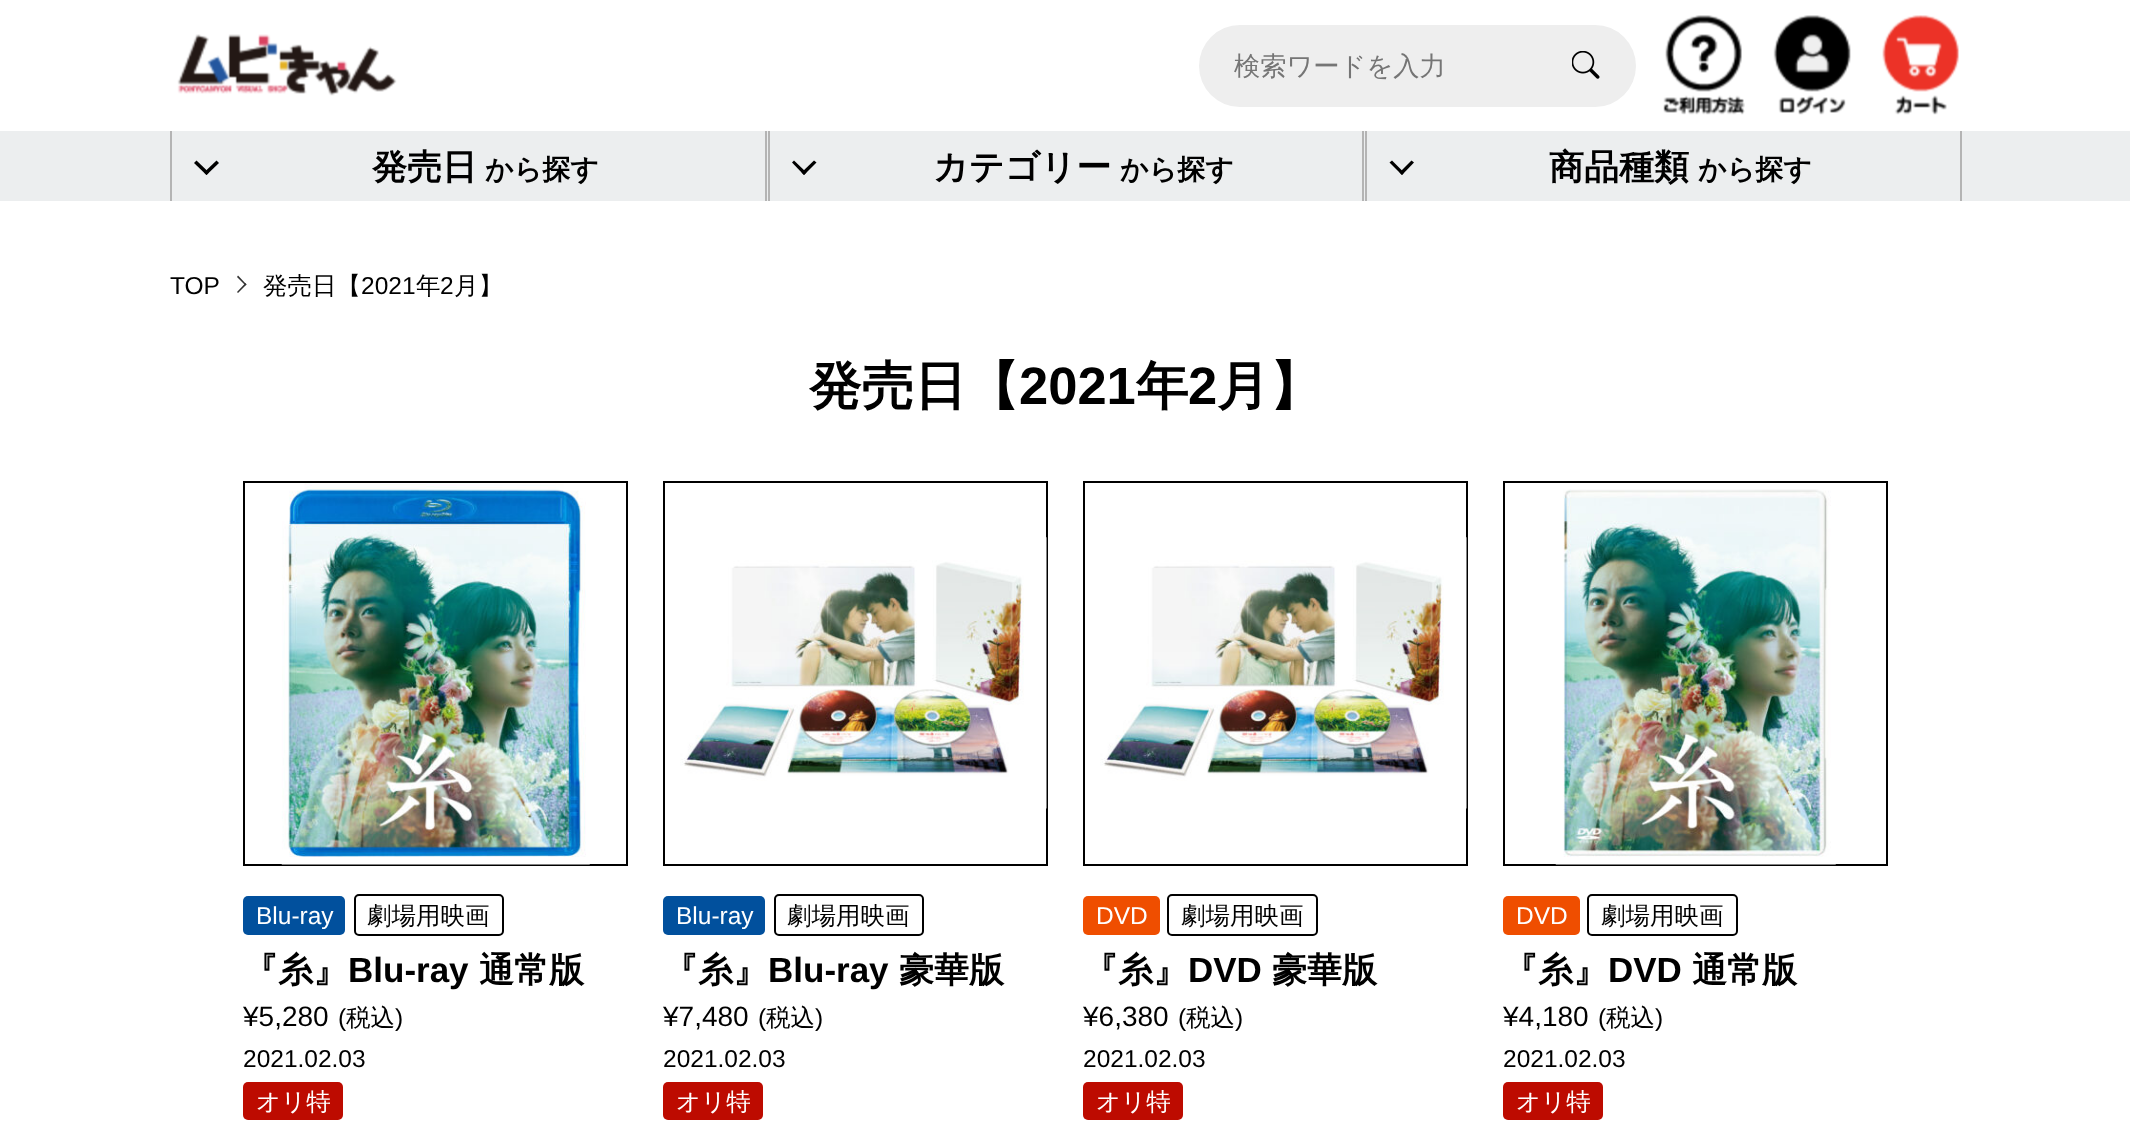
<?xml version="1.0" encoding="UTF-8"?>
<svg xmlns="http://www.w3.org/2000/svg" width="2130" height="1126">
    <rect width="100%" height="100%" fill="#FFFFFF"/>
    <image x="177" y="34" width="220" height="62" href="img_01.png"/>
    <rect x="1199" y="25" width="437" height="82" rx="41" fill="#EEEEEE"/>
    <text x="1234" y="75" font-family="WenQuanYi Zen Hei" font-size="26.25" font-weight="500" fill="#757575">検索ワードを入力</text>
    <image x="1572" y="51" width="28" height="28" href="img_02.png"/>
    <image x="1663" y="15" width="82" height="100" href="img_03.png"/>
    <image x="1773" y="15" width="78" height="100" href="img_04.png"/>
    <image x="1882" y="15" width="77" height="100" href="img_05.png"/>
    <rect x="0" y="131" width="2130" height="70" fill="#ECEEEF"/>
    <rect x="765" y="131" width="2" height="70" fill="#B4B4B4"/>
    <rect x="170" y="131" width="2" height="70" fill="#B4B4B4"/>
    <path d="M 219 163 L 206.5 175 L 204 172.5 L 216.5 160.5 Z" fill="#000000"/>
    <path d="M 209 172.5 L 206.5 175 L 194 163 L 196.5 160.5 Z" fill="#000000"/>
    <text x="372" y="179" font-family="WenQuanYi Zen Hei" font-size="35" font-weight="700" fill="#000000">発売日</text>
    <text x="485" y="179" font-family="WenQuanYi Zen Hei" font-size="28" font-weight="700" fill="#000000">から探す</text>
    <rect x="1362" y="131" width="2" height="70" fill="#B4B4B4"/>
    <rect x="768" y="131" width="2" height="70" fill="#B4B4B4"/>
    <path d="M 816.5 162.5 L 804 175 L 801.5 172.5 L 814 160.5 Z" fill="#000000"/>
    <path d="M 806.5 172.5 L 804 175 L 792 162.5 L 794 160.5 Z" fill="#000000"/>
    <text x="933" y="179" font-family="WenQuanYi Zen Hei" font-size="35" font-weight="700" fill="#000000">カテゴリー</text>
    <text x="1120" y="179" font-family="WenQuanYi Zen Hei" font-size="28" font-weight="700" fill="#000000">から探す</text>
    <rect x="1960" y="131" width="2" height="70" fill="#B4B4B4"/>
    <rect x="1365" y="131" width="2" height="70" fill="#B4B4B4"/>
    <path d="M 1414 162.5 L 1402 175 L 1399.5 172.5 L 1411.5 160.5 Z" fill="#000000"/>
    <path d="M 1404 172.5 L 1402 175 L 1389.5 162.5 L 1392 160.5 Z" fill="#000000"/>
    <text x="1549" y="179" font-family="WenQuanYi Zen Hei" font-size="35" font-weight="700" fill="#000000">商品種類</text>
    <text x="1698" y="179" font-family="WenQuanYi Zen Hei" font-size="28" font-weight="700" fill="#000000">から探す</text>
    <text x="170" y="294" font-family="Liberation Sans" font-size="24.5" fill="#000000">TOP</text>
    <path d="M 238 275.5 L 246.5 284.5 L 245.5 285.5 L 237 277 Z" fill="#333333"/>
    <path d="M 245.5 283 L 246.5 284.5 L 238 293 L 237 292 Z" fill="#333333"/>
    <text x="263" y="294" font-family="WenQuanYi Zen Hei" font-size="24.5" font-weight="500" fill="#000000">発売日【</text>
    <text x="361" y="294" font-family="Liberation Sans" font-size="24.5" fill="#000000">2021</text>
    <text x="416" y="294" font-family="WenQuanYi Zen Hei" font-size="24.5" font-weight="500" fill="#000000">年</text>
    <text x="440" y="294" font-family="Liberation Sans" font-size="24.5" fill="#000000">2</text>
    <text x="454" y="294" font-family="WenQuanYi Zen Hei" font-size="24.5" font-weight="500" fill="#000000">月】</text>
    <text x="809" y="404" font-family="WenQuanYi Zen Hei" font-size="52.5" font-weight="700" fill="#000000">発売日【</text>
    <text x="1019" y="404" font-family="Liberation Sans" font-size="52.5" font-weight="700" fill="#000000">2021</text>
    <text x="1136" y="404" font-family="WenQuanYi Zen Hei" font-size="52.5" font-weight="700" fill="#000000">年</text>
    <text x="1188" y="404" font-family="Liberation Sans" font-size="52.5" font-weight="700" fill="#000000">2</text>
    <text x="1217" y="404" font-family="WenQuanYi Zen Hei" font-size="52.5" font-weight="700" fill="#000000">月】</text>
    <rect x="244" y="482" width="383" height="383" fill="none" stroke="#000000" stroke-width="2"/>
    <image x="281" y="483" width="309" height="382" href="img_06.png"/>
    <rect x="243" y="896" width="102" height="39" rx="5" fill="#01509D"/>
    <text x="256" y="924" font-family="Liberation Sans" font-size="24.5" fill="#FFFFFF">Blu-ray</text>
    <rect x="355" y="895" width="148" height="40" rx="4" fill="none" stroke="#000000" stroke-width="2"/>
    <text x="367" y="924" font-family="WenQuanYi Zen Hei" font-size="24.5" font-weight="500" fill="#000000">劇場用映画</text>
    <text x="243" y="982" font-family="WenQuanYi Zen Hei" font-size="35" font-weight="700" fill="#000000">『糸』</text>
    <text x="348" y="982" font-family="Liberation Sans" font-size="35" font-weight="700" fill="#000000">Blu-ray</text>
    <text x="479" y="982" font-family="WenQuanYi Zen Hei" font-size="35" font-weight="700" fill="#000000">通常版</text>
    <text x="243" y="1026" font-family="Liberation Sans" font-size="28" fill="#000000">¥5,280</text>
    <text x="338" y="1026" font-family="Liberation Sans" font-size="24.5" fill="#000000">(</text>
    <text x="346" y="1026" font-family="WenQuanYi Zen Hei" font-size="24.5" font-weight="500" fill="#000000">税込</text>
    <text x="395" y="1026" font-family="Liberation Sans" font-size="24.5" fill="#000000">)</text>
    <text x="243" y="1067" font-family="Liberation Sans" font-size="24.5" fill="#000000">2021.02.03</text>
    <rect x="243" y="1082" width="100" height="38" rx="5" fill="#BD0B00"/>
    <text x="256" y="1110" font-family="WenQuanYi Zen Hei" font-size="24.5" font-weight="500" fill="#FFFFFF">オリ特</text>
    <rect x="664" y="482" width="383" height="383" fill="none" stroke="#000000" stroke-width="2"/>
    <image x="680" y="537" width="367" height="272" href="img_07.png"/>
    <rect x="663" y="896" width="102" height="39" rx="5" fill="#01509D"/>
    <text x="676" y="924" font-family="Liberation Sans" font-size="24.5" fill="#FFFFFF">Blu-ray</text>
    <rect x="775" y="895" width="148" height="40" rx="4" fill="none" stroke="#000000" stroke-width="2"/>
    <text x="787" y="924" font-family="WenQuanYi Zen Hei" font-size="24.5" font-weight="500" fill="#000000">劇場用映画</text>
    <text x="663" y="982" font-family="WenQuanYi Zen Hei" font-size="35" font-weight="700" fill="#000000">『糸』</text>
    <text x="768" y="982" font-family="Liberation Sans" font-size="35" font-weight="700" fill="#000000">Blu-ray</text>
    <text x="899" y="982" font-family="WenQuanYi Zen Hei" font-size="35" font-weight="700" fill="#000000">豪華版</text>
    <text x="663" y="1026" font-family="Liberation Sans" font-size="28" fill="#000000">¥7,480</text>
    <text x="758" y="1026" font-family="Liberation Sans" font-size="24.5" fill="#000000">(</text>
    <text x="766" y="1026" font-family="WenQuanYi Zen Hei" font-size="24.5" font-weight="500" fill="#000000">税込</text>
    <text x="815" y="1026" font-family="Liberation Sans" font-size="24.5" fill="#000000">)</text>
    <text x="663" y="1067" font-family="Liberation Sans" font-size="24.5" fill="#000000">2021.02.03</text>
    <rect x="663" y="1082" width="100" height="38" rx="5" fill="#BD0B00"/>
    <text x="676" y="1110" font-family="WenQuanYi Zen Hei" font-size="24.5" font-weight="500" fill="#FFFFFF">オリ特</text>
    <rect x="1084" y="482" width="383" height="383" fill="none" stroke="#000000" stroke-width="2"/>
    <image x="1100" y="537" width="367" height="272" href="img_08.png"/>
    <rect x="1083" y="896" width="77" height="39" rx="5" fill="#EF4E00"/>
    <text x="1096" y="924" font-family="Liberation Sans" font-size="24.5" fill="#FFFFFF">DVD</text>
    <rect x="1168" y="895" width="149" height="40" rx="4" fill="none" stroke="#000000" stroke-width="2"/>
    <text x="1181" y="924" font-family="WenQuanYi Zen Hei" font-size="24.5" font-weight="500" fill="#000000">劇場用映画</text>
    <text x="1083" y="982" font-family="WenQuanYi Zen Hei" font-size="35" font-weight="700" fill="#000000">『糸』</text>
    <text x="1188" y="982" font-family="Liberation Sans" font-size="35" font-weight="700" fill="#000000">DVD</text>
    <text x="1272" y="982" font-family="WenQuanYi Zen Hei" font-size="35" font-weight="700" fill="#000000">豪華版</text>
    <text x="1083" y="1026" font-family="Liberation Sans" font-size="28" fill="#000000">¥6,380</text>
    <text x="1178" y="1026" font-family="Liberation Sans" font-size="24.5" fill="#000000">(</text>
    <text x="1186" y="1026" font-family="WenQuanYi Zen Hei" font-size="24.5" font-weight="500" fill="#000000">税込</text>
    <text x="1235" y="1026" font-family="Liberation Sans" font-size="24.5" fill="#000000">)</text>
    <text x="1083" y="1067" font-family="Liberation Sans" font-size="24.5" fill="#000000">2021.02.03</text>
    <rect x="1083" y="1082" width="100" height="38" rx="5" fill="#BD0B00"/>
    <text x="1096" y="1110" font-family="WenQuanYi Zen Hei" font-size="24.5" font-weight="500" fill="#FFFFFF">オリ特</text>
    <rect x="1504" y="482" width="383" height="383" fill="none" stroke="#000000" stroke-width="2"/>
    <image x="1555" y="489" width="281" height="376" href="img_09.png"/>
    <rect x="1503" y="896" width="77" height="39" rx="5" fill="#EF4E00"/>
    <text x="1516" y="924" font-family="Liberation Sans" font-size="24.5" fill="#FFFFFF">DVD</text>
    <rect x="1588" y="895" width="149" height="40" rx="4" fill="none" stroke="#000000" stroke-width="2"/>
    <text x="1601" y="924" font-family="WenQuanYi Zen Hei" font-size="24.5" font-weight="500" fill="#000000">劇場用映画</text>
    <text x="1503" y="982" font-family="WenQuanYi Zen Hei" font-size="35" font-weight="700" fill="#000000">『糸』</text>
    <text x="1608" y="982" font-family="Liberation Sans" font-size="35" font-weight="700" fill="#000000">DVD</text>
    <text x="1692" y="982" font-family="WenQuanYi Zen Hei" font-size="35" font-weight="700" fill="#000000">通常版</text>
    <text x="1503" y="1026" font-family="Liberation Sans" font-size="28" fill="#000000">¥4,180</text>
    <text x="1598" y="1026" font-family="Liberation Sans" font-size="24.5" fill="#000000">(</text>
    <text x="1606" y="1026" font-family="WenQuanYi Zen Hei" font-size="24.5" font-weight="500" fill="#000000">税込</text>
    <text x="1655" y="1026" font-family="Liberation Sans" font-size="24.5" fill="#000000">)</text>
    <text x="1503" y="1067" font-family="Liberation Sans" font-size="24.5" fill="#000000">2021.02.03</text>
    <rect x="1503" y="1082" width="100" height="38" rx="5" fill="#BD0B00"/>
    <text x="1516" y="1110" font-family="WenQuanYi Zen Hei" font-size="24.5" font-weight="500" fill="#FFFFFF">オリ特</text>
</svg>
